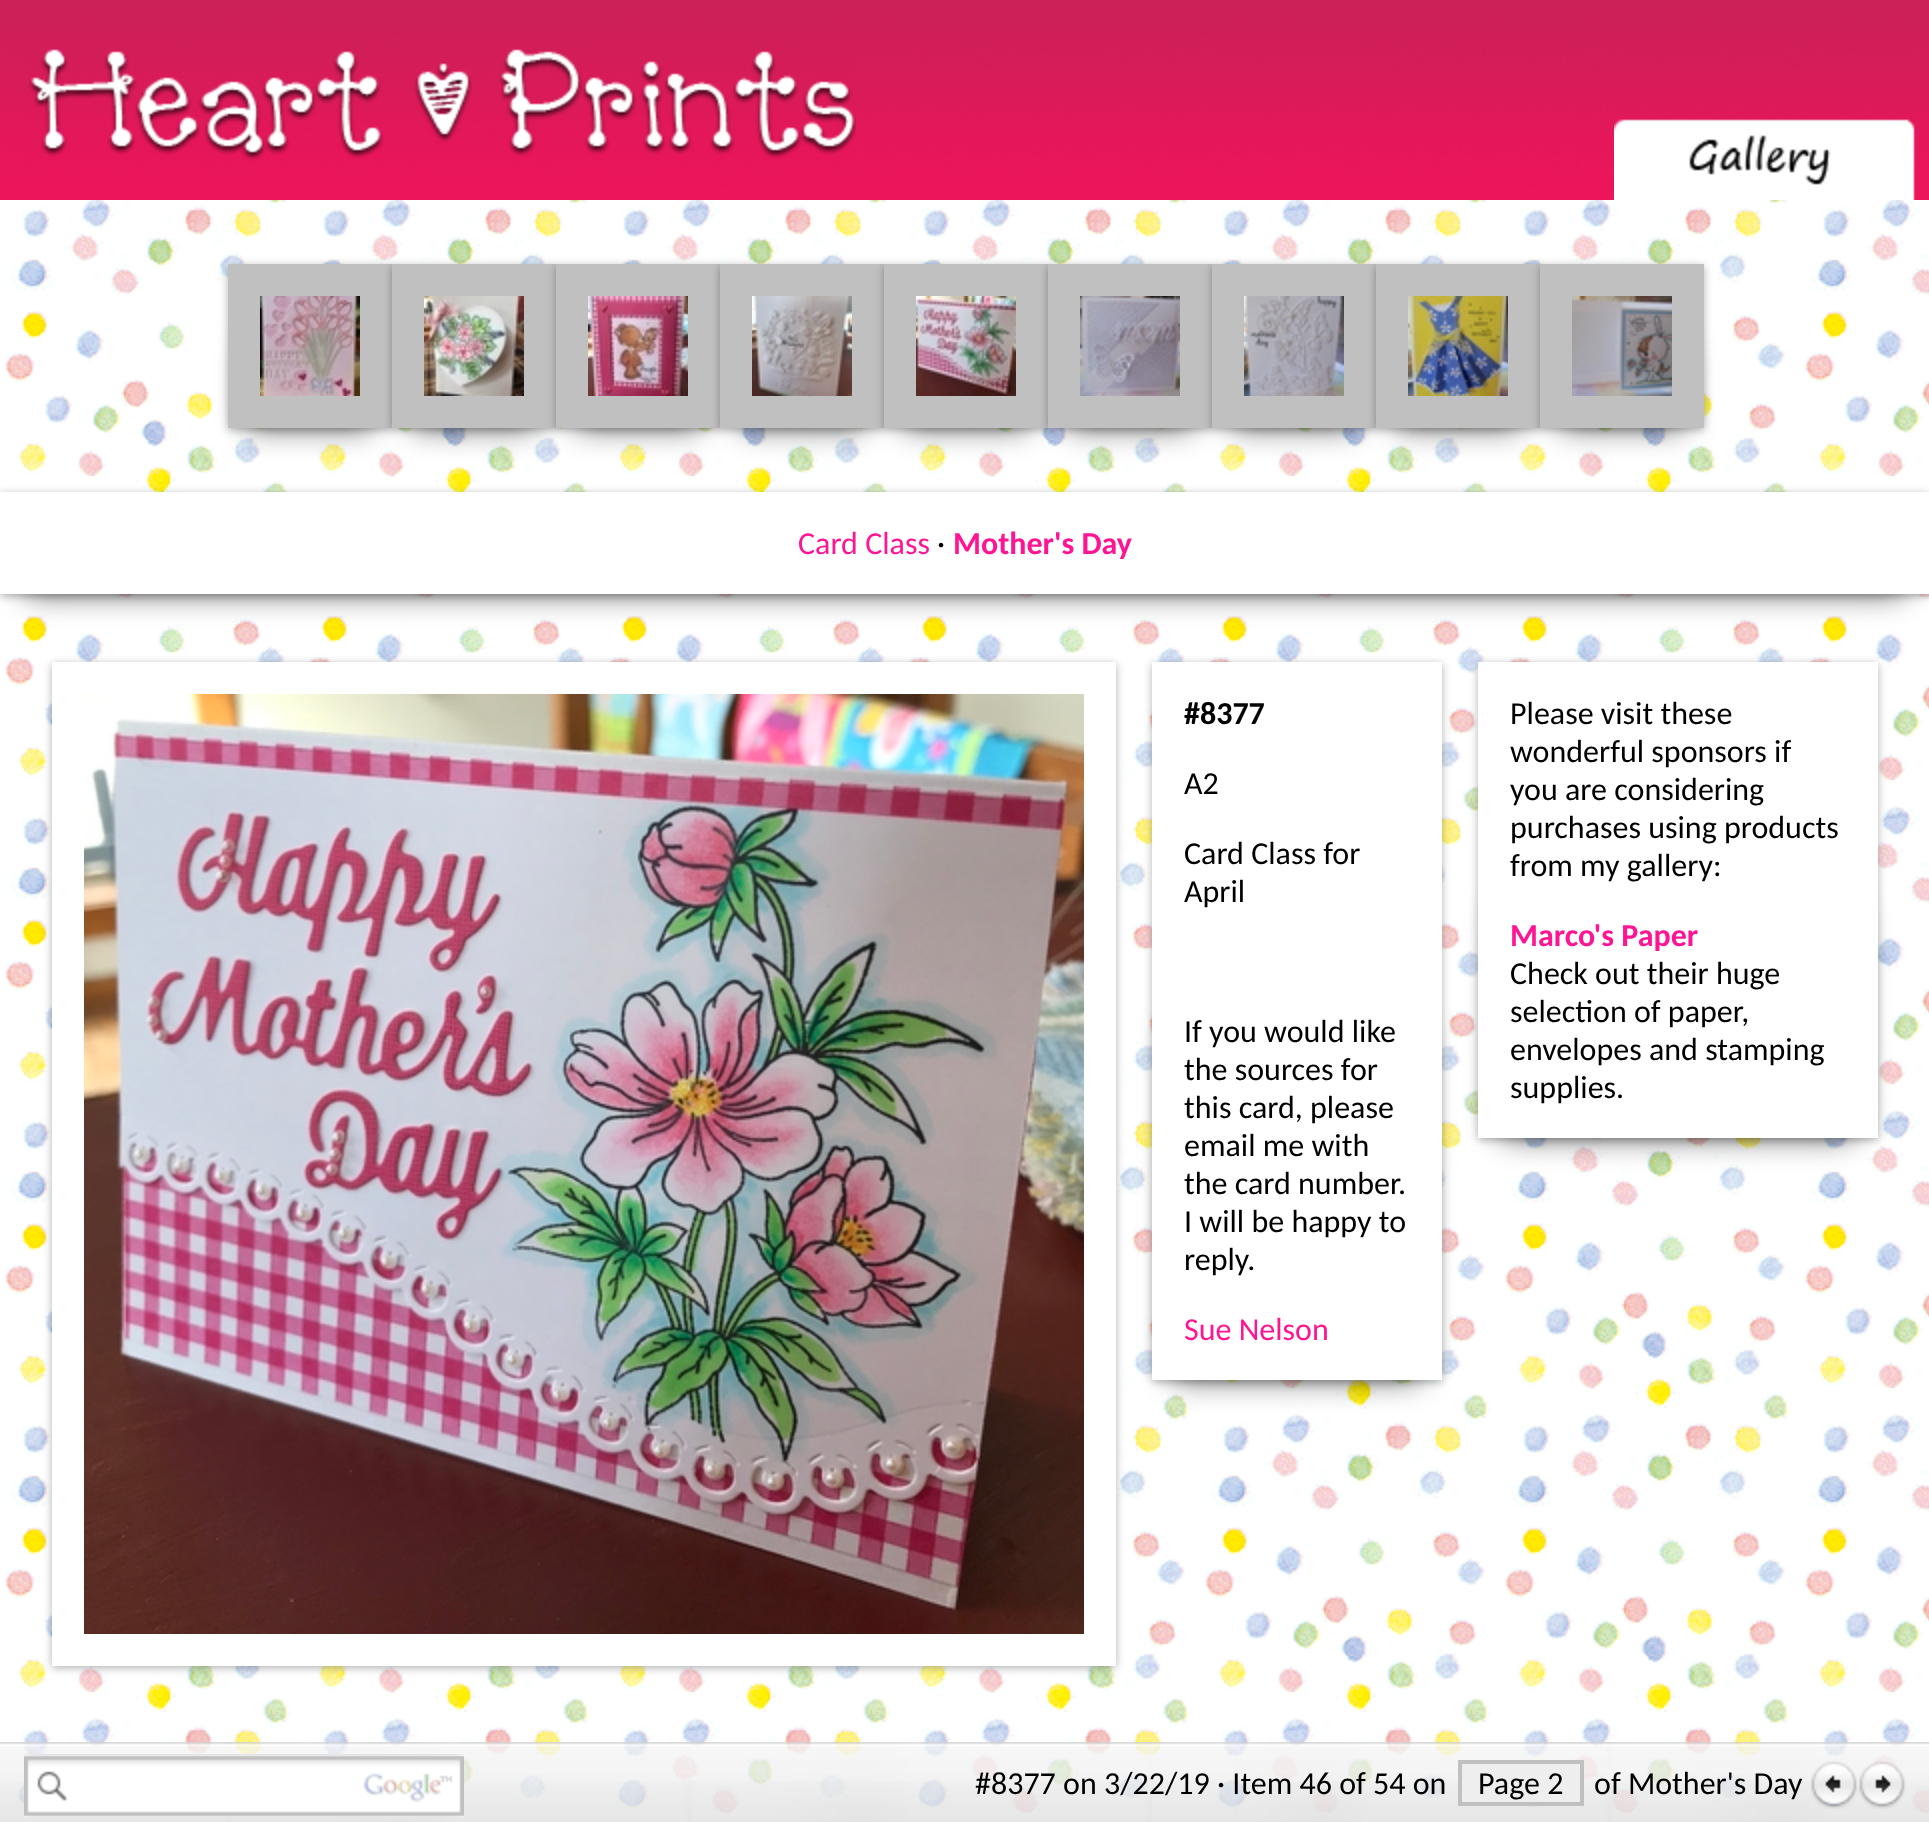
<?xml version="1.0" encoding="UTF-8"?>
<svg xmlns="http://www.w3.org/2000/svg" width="1929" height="1822">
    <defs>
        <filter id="blur1" x="-50%" y="-200%" width="200%" height="500%"><feGaussianBlur stdDeviation="4"/></filter>
        <filter id="blur2" x="-50%" y="-200%" width="200%" height="500%"><feGaussianBlur stdDeviation="15"/></filter>
    </defs>
    <rect width="100%" height="100%" fill="#FFFFFF"/>
    <image x="4" y="200" width="1925" height="1615" href="img_01.png"/>
    <image x="0" y="0" width="1929" height="200" href="img_02.png"/>
    <image x="28" y="49" width="828" height="112" href="img_03.png"/>
    <image x="1614" y="119" width="301" height="81" href="img_04.png"/>
    <rect x="228" y="266" width="164" height="164" fill="#000000" fill-opacity="0.3" filter="url(#blur1)"/>
    <rect x="248" y="346" width="124" height="82" rx="6" fill="#000000" fill-opacity="0.6" filter="url(#blur2)"/>
    <rect x="412" y="346" width="124" height="82" rx="6" fill="#000000" fill-opacity="0.6" filter="url(#blur2)"/>
    <rect x="228" y="264" width="164" height="164" fill="#C0C0C0"/>
    <image x="260" y="296" width="100" height="100" href="img_05.png"/>
    <rect x="392" y="266" width="164" height="164" fill="#000000" fill-opacity="0.3" filter="url(#blur1)"/>
    <rect x="576" y="346" width="124" height="82" rx="6" fill="#000000" fill-opacity="0.6" filter="url(#blur2)"/>
    <rect x="392" y="264" width="164" height="164" fill="#C0C0C0"/>
    <image x="424" y="296" width="100" height="100" href="img_06.png"/>
    <rect x="556" y="266" width="164" height="164" fill="#000000" fill-opacity="0.3" filter="url(#blur1)"/>
    <rect x="740" y="346" width="124" height="82" rx="6" fill="#000000" fill-opacity="0.6" filter="url(#blur2)"/>
    <rect x="556" y="264" width="164" height="164" fill="#C0C0C0"/>
    <image x="588" y="296" width="100" height="100" href="img_07.png"/>
    <rect x="720" y="266" width="164" height="164" fill="#000000" fill-opacity="0.3" filter="url(#blur1)"/>
    <rect x="904" y="346" width="124" height="82" rx="6" fill="#000000" fill-opacity="0.6" filter="url(#blur2)"/>
    <rect x="720" y="264" width="164" height="164" fill="#C0C0C0"/>
    <image x="752" y="296" width="100" height="100" href="img_08.png"/>
    <rect x="884" y="266" width="164" height="164" fill="#000000" fill-opacity="0.3" filter="url(#blur1)"/>
    <rect x="1068" y="346" width="124" height="82" rx="6" fill="#000000" fill-opacity="0.6" filter="url(#blur2)"/>
    <rect x="884" y="264" width="164" height="164" fill="#C0C0C0"/>
    <image x="916" y="296" width="100" height="100" href="img_09.png"/>
    <rect x="1048" y="266" width="164" height="164" fill="#000000" fill-opacity="0.3" filter="url(#blur1)"/>
    <rect x="1232" y="346" width="124" height="82" rx="6" fill="#000000" fill-opacity="0.6" filter="url(#blur2)"/>
    <rect x="1048" y="264" width="164" height="164" fill="#C0C0C0"/>
    <image x="1080" y="296" width="100" height="100" href="img_10.png"/>
    <rect x="1212" y="266" width="164" height="164" fill="#000000" fill-opacity="0.3" filter="url(#blur1)"/>
    <rect x="1396" y="346" width="124" height="82" rx="6" fill="#000000" fill-opacity="0.6" filter="url(#blur2)"/>
    <rect x="1212" y="264" width="164" height="164" fill="#C0C0C0"/>
    <image x="1244" y="296" width="100" height="100" href="img_11.png"/>
    <rect x="1376" y="266" width="164" height="164" fill="#000000" fill-opacity="0.3" filter="url(#blur1)"/>
    <rect x="1560" y="346" width="124" height="82" rx="6" fill="#000000" fill-opacity="0.6" filter="url(#blur2)"/>
    <rect x="1376" y="264" width="164" height="164" fill="#C0C0C0"/>
    <image x="1408" y="296" width="100" height="100" href="img_12.png"/>
    <rect x="1540" y="266" width="164" height="164" fill="#000000" fill-opacity="0.3" filter="url(#blur1)"/>
    <rect x="1540" y="264" width="164" height="164" fill="#C0C0C0"/>
    <image x="1572" y="296" width="100" height="100" href="img_13.png"/>
    <rect x="0" y="494" width="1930" height="102" fill="#000000" fill-opacity="0.3" filter="url(#blur1)"/>
    <rect x="20" y="544" width="1890" height="50" rx="20" fill="#000000" fill-opacity="0.6" filter="url(#blur2)"/>
    <rect x="0" y="492" width="1929" height="102" fill="#FFFFFF"/>
    <text x="798" y="554" font-family="Carlito" font-size="32" fill="#FF1493">Card Class</text>
    <text x="937" y="554" font-family="Carlito" font-size="32" fill="#000000">·</text>
    <text x="953" y="554" font-family="Carlito" font-size="32" font-weight="700" fill="#FF1493">Mother's Day</text>
    <rect x="52" y="664" width="1064" height="1004" fill="#000000" fill-opacity="0.3" filter="url(#blur1)"/>
    <rect x="52" y="662" width="1064" height="1004" fill="#FFFFFF"/>
    <image x="84" y="694" width="1000" height="940" href="img_14.png"/>
    <rect x="1152" y="664" width="290" height="718" fill="#000000" fill-opacity="0.3" filter="url(#blur1)"/>
    <rect x="1172" y="1022" width="250" height="358" rx="12" fill="#000000" fill-opacity="0.6" filter="url(#blur2)"/>
    <rect x="1152" y="662" width="290" height="718" fill="#FFFFFF"/>
    <text x="1184" y="724" font-family="Carlito" font-size="32" font-weight="700" fill="#000000">#8377</text>
    <text x="1184" y="794" font-family="Carlito" font-size="32" fill="#000000">A2</text>
    <text font-family="Carlito" font-size="32" fill="#000000">
        <tspan x="1184" y="864">Card Class for</tspan>
        <tspan x="1184" y="902">April</tspan>
    </text>
    <text font-family="Carlito" font-size="32" fill="#000000">
        <tspan x="1184" y="1042">If you would like</tspan>
        <tspan x="1184" y="1080">the sources for</tspan>
        <tspan x="1184" y="1118">this card, please</tspan>
        <tspan x="1184" y="1156">email me with</tspan>
        <tspan x="1184" y="1194">the card number.</tspan>
        <tspan x="1184" y="1232">I will be happy to</tspan>
        <tspan x="1184" y="1270">reply.</tspan>
    </text>
    <text x="1184" y="1340" font-family="Carlito" font-size="32" fill="#FF1493">Sue Nelson</text>
    <rect x="1478" y="664" width="400" height="476" fill="#000000" fill-opacity="0.3" filter="url(#blur1)"/>
    <rect x="1498" y="900" width="360" height="238" rx="18" fill="#000000" fill-opacity="0.6" filter="url(#blur2)"/>
    <rect x="1478" y="662" width="400" height="476" fill="#FFFFFF"/>
    <text font-family="Carlito" font-size="32" fill="#000000">
        <tspan x="1510" y="724">Please visit these</tspan>
        <tspan x="1510" y="762">wonderful sponsors if</tspan>
        <tspan x="1510" y="800">you are considering</tspan>
        <tspan x="1510" y="838">purchases using products</tspan>
        <tspan x="1510" y="876">from my gallery:</tspan>
    </text>
    <text x="1510" y="946" font-family="Carlito" font-size="32" font-weight="700" fill="#FF1493">Marco's Paper</text>
    <text font-family="Carlito" font-size="32" fill="#000000">
        <tspan x="1510" y="984">Check out their huge</tspan>
        <tspan x="1510" y="1022">selection of paper,</tspan>
        <tspan x="1510" y="1060">envelopes and stamping</tspan>
        <tspan x="1510" y="1098">supplies.</tspan>
    </text>
    <image x="0" y="1742" width="1929" height="80" href="img_15.png"/>
    <rect x="24" y="1754" width="440" height="64" fill="#FFFFFF"/>
    <image x="24" y="1754" width="440" height="64" href="img_16.png"/>
    <text x="975" y="1794" font-family="Carlito" font-size="32" fill="#000000">#8377 on 3/22/19 · Item 46 of 54 on</text>
    <rect x="1460" y="1762" width="122" height="42" fill="#EEEEEE" stroke="#C0C0C0" stroke-width="4"/>
    <text x="1478" y="1794" font-family="Carlito" font-size="32" fill="#000000">Page 2</text>
    <text x="1594" y="1794" font-family="Carlito" font-size="32" fill="#000000">of Mother's Day</text>
    <image x="1810" y="1761" width="48" height="48" href="img_17.png"/>
    <image x="1858" y="1761" width="48" height="48" href="img_18.png"/>
</svg>
